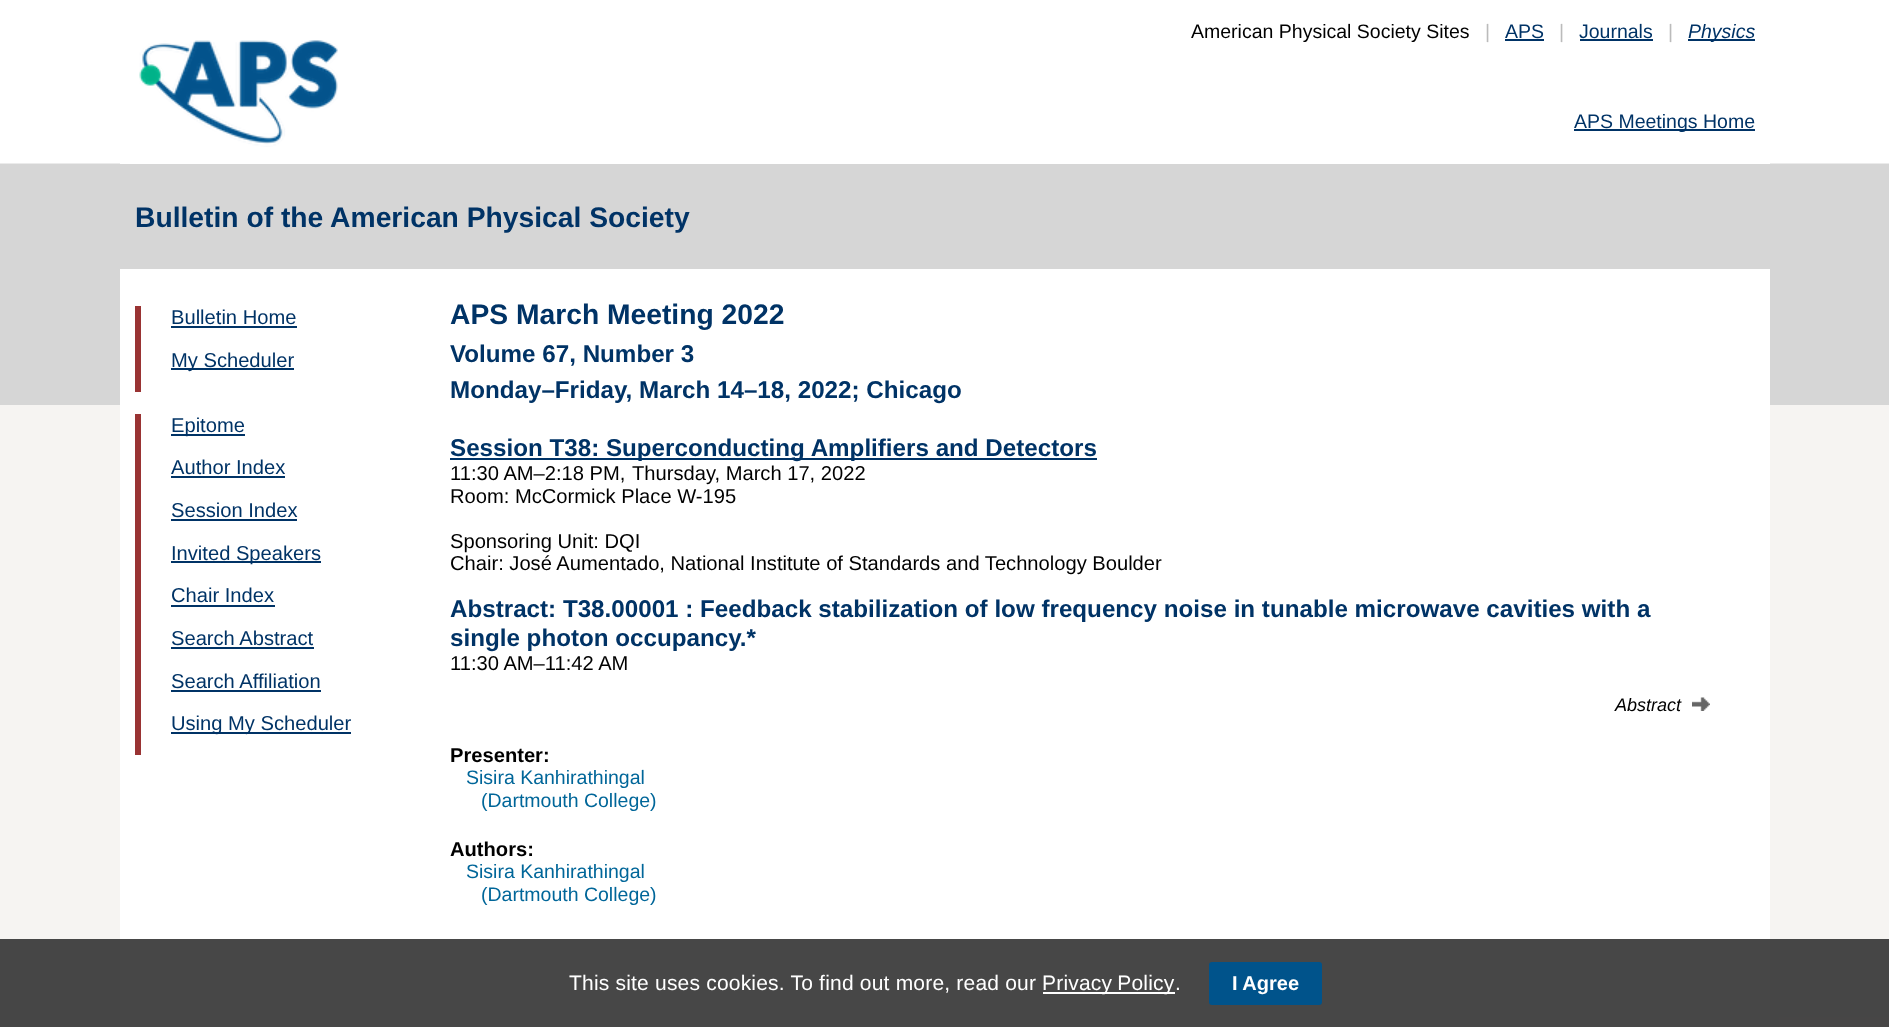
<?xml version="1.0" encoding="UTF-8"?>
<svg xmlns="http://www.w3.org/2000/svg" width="1889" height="1027">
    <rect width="100%" height="100%" fill="#F6F4F2"/>
    <image x="0" y="0" width="1889" height="405" href="img_01.png"/>
    <rect x="120" y="163" width="1650" height="864" fill="#FFFFFF"/>
    <text x="1191" y="38" font-family="Liberation Sans" font-size="19.5" fill="#000000">American Physical Society Sites</text>
    <text x="1485" y="38" font-family="Liberation Sans" font-size="19.5" fill="#BBBBBB">|</text>
    <text x="1505" y="38" font-family="Liberation Sans" font-size="19.5" fill="#003366">APS</text>
    <rect x="1505" y="39" width="39" height="2" fill="#003366"/>
    <text x="1559" y="38" font-family="Liberation Sans" font-size="19.5" fill="#BBBBBB">|</text>
    <text x="1579" y="38" font-family="Liberation Sans" font-size="19.5" fill="#003366">Journals</text>
    <rect x="1580" y="39" width="73" height="2" fill="#003366"/>
    <text x="1668" y="38" font-family="Liberation Sans" font-size="19.5" fill="#BBBBBB">|</text>
    <rect x="1688" y="39" width="67" height="2" fill="#003366"/>
    <text x="1688" y="38" font-family="Liberation Sans" font-size="19.5" font-style="italic" fill="#003366">Physics</text>
    <image x="139" y="40" width="199" height="107" href="img_02.png"/>
    <rect x="1574" y="129" width="181" height="2" fill="#003366"/>
    <text x="1574" y="128" font-family="Liberation Sans" font-size="19.5" fill="#003366">APS Meetings Home</text>
    <rect x="120" y="164" width="1650" height="105" fill="#D6D6D6"/>
    <text x="135" y="227" font-family="Liberation Sans" font-size="28.25" font-weight="700" fill="#003366">Bulletin of the American Physical Society</text>
    <rect x="135" y="306" width="6" height="86" fill="#993333"/>
    <text x="171" y="324" font-family="Liberation Sans" font-size="20.15" fill="#003366">Bulletin Home</text>
    <rect x="171" y="326" width="126" height="2" fill="#003366"/>
    <rect x="171" y="368" width="123" height="2" fill="#003366"/>
    <text x="171" y="367" font-family="Liberation Sans" font-size="20.15" fill="#003366">My Scheduler</text>
    <rect x="135" y="414" width="6" height="341" fill="#993333"/>
    <rect x="171" y="434" width="74" height="2" fill="#003366"/>
    <text x="171" y="432" font-family="Liberation Sans" font-size="20.15" fill="#003366">Epitome</text>
    <text x="171" y="474" font-family="Liberation Sans" font-size="20.15" fill="#003366">Author Index</text>
    <rect x="171" y="476" width="114" height="2" fill="#003366"/>
    <text x="171" y="517" font-family="Liberation Sans" font-size="20.15" fill="#003366">Session Index</text>
    <rect x="171" y="519" width="126" height="2" fill="#003366"/>
    <rect x="171" y="561" width="150" height="2" fill="#003366"/>
    <text x="171" y="560" font-family="Liberation Sans" font-size="20.15" fill="#003366">Invited Speakers</text>
    <text x="171" y="602" font-family="Liberation Sans" font-size="20.15" fill="#003366">Chair Index</text>
    <rect x="171" y="605" width="104" height="2" fill="#003366"/>
    <text x="171" y="645" font-family="Liberation Sans" font-size="20.15" fill="#003366">Search Abstract</text>
    <rect x="171" y="647" width="143" height="2" fill="#003366"/>
    <text x="171" y="688" font-family="Liberation Sans" font-size="20.15" fill="#003366">Search Affiliation</text>
    <rect x="171" y="690" width="150" height="2" fill="#003366"/>
    <rect x="171" y="732" width="180" height="2" fill="#003366"/>
    <text x="171" y="730" font-family="Liberation Sans" font-size="20.15" fill="#003366">Using My Scheduler</text>
    <text x="450" y="324" font-family="Liberation Sans" font-size="28.25" font-weight="700" fill="#003366">APS March Meeting 2022</text>
    <text font-family="Liberation Sans" font-size="24.2" font-weight="700" fill="#003366">
        <tspan x="450" y="362">Volume 67, Number 3</tspan>
        <tspan x="450" y="398">Monday–Friday, March 14–18, 2022; Chicago</tspan>
    </text>
    <rect x="450" y="458" width="647" height="2" fill="#003366"/>
    <text x="450" y="456" font-family="Liberation Sans" font-size="24.2" font-weight="700" fill="#003366">Session T38: Superconducting Amplifiers and Detectors</text>
    <text x="450" y="480" font-family="Liberation Sans" font-size="20.15" fill="#000000">11:30 AM–2:18 PM,</text>
    <text x="632" y="480" font-family="Liberation Sans" font-size="20.15" fill="#000000">Thursday, March 17, 2022</text>
    <text x="450" y="503" font-family="Liberation Sans" font-size="20.15" fill="#000000">Room: McCormick Place W-195</text>
    <text font-family="Liberation Sans" font-size="20.15" fill="#000000">
        <tspan x="450" y="548">Sponsoring Unit: DQI</tspan>
        <tspan x="450" y="570">Chair: José Aumentado, National Institute of Standards and Technology Boulder</tspan>
    </text>
    <text font-family="Liberation Sans" font-size="24.2" font-weight="700" fill="#003366">
        <tspan x="450" y="617">Abstract: T38.00001 : Feedback stabilization of low frequency noise in tunable microwave cavities with a</tspan>
        <tspan x="450" y="646">single photon occupancy.*</tspan>
    </text>
    <text x="450" y="670" font-family="Liberation Sans" font-size="20.15" fill="#000000">11:30 AM–11:42 AM</text>
    <text x="1615" y="711" font-family="Liberation Sans" font-size="18" font-style="italic" fill="#000000">Abstract</text>
    <image x="1692" y="697" width="18" height="14" href="img_03.png"/>
    <text x="450" y="762" font-family="Liberation Sans" font-size="20.15" font-weight="700" fill="#000000">Presenter:</text>
    <text x="466" y="784" font-family="Liberation Sans" font-size="19.5" fill="#006699">Sisira Kanhirathingal</text>
    <text x="481" y="807" font-family="Liberation Sans" font-size="19.5" fill="#006699">(Dartmouth College)</text>
    <text x="450" y="856" font-family="Liberation Sans" font-size="20.15" font-weight="700" fill="#000000">Authors:</text>
    <text x="466" y="878" font-family="Liberation Sans" font-size="19.5" fill="#006699">Sisira Kanhirathingal</text>
    <text x="481" y="901" font-family="Liberation Sans" font-size="19.5" fill="#006699">(Dartmouth College)</text>
    <rect x="0" y="939" width="1889" height="88" fill="#333333" fill-opacity="0.9"/>
    <text x="569" y="990" font-family="Liberation Sans" font-size="21" letter-spacing="0.2" fill="#FFFFFF">This site uses cookies. To find out more, read our</text>
    <rect x="1043" y="992" width="132" height="2" fill="#FFFFFF"/>
    <text x="1042" y="990" word-spacing="-1" font-family="Liberation Sans" font-size="21" letter-spacing="0.2" fill="#FFFFFF">Privacy Policy</text>
    <text x="1175" y="990" font-family="Liberation Sans" font-size="21" letter-spacing="0.2" fill="#FFFFFF">.</text>
    <rect x="1210" y="963" width="111" height="41" rx="2" fill="#00538B" stroke="#00538B" stroke-width="2"/>
    <text x="1232" y="990" font-family="Liberation Sans" font-size="20" font-weight="700" fill="#FFFFFF">I Agree</text>
</svg>
